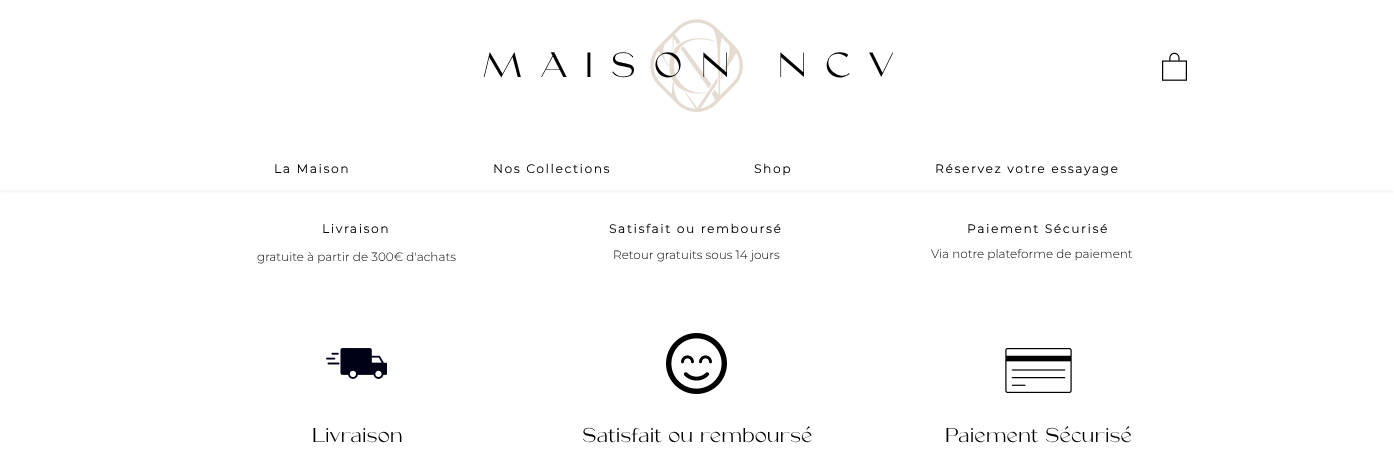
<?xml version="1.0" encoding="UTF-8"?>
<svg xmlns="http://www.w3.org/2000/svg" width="1394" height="464">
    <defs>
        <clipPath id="clip1"><rect x="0" y="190" width="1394" height="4"/></clipPath>
        <filter id="blur1" x="-50%" y="-200%" width="200%" height="500%"><feGaussianBlur stdDeviation="2.5"/></filter>
    </defs>
    <rect width="100%" height="100%" fill="#FFFFFF"/>
    <g clip-path="url(#clip1)">
        <rect x="0" y="0" width="1394" height="190" fill="#CCCCCC" fill-opacity="0.5" filter="url(#blur1)"/>
    </g>
    <image x="650" y="19" width="93" height="93" href="img_01.png"/>
    <text x="482" y="77" font-family="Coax" font-size="35" letter-spacing="17.5" fill="#000000">MAISON NCV</text>
    <image x="1162" y="52" width="25" height="29" href="img_02.png"/>
    <text x="274" y="173" font-family="Montserrat" font-size="12" font-weight="700" letter-spacing="1.8" fill="#000000">La Maison</text>
    <text x="493" y="173" font-family="Montserrat" font-size="12" font-weight="700" letter-spacing="1.8" fill="#000000">Nos Collections</text>
    <text x="754" y="173" font-family="Montserrat" font-size="12" font-weight="700" letter-spacing="1.8" fill="#000000">Shop</text>
    <text x="935" y="173" font-family="Montserrat" font-size="12" font-weight="700" letter-spacing="1.8" fill="#000000">Réservez votre essayage</text>
    <text x="322" y="233" font-family="Montserrat" font-size="12" font-weight="700" letter-spacing="1.8" fill="#000000">Livraison</text>
    <text x="609" y="233" font-family="Montserrat" font-size="12" font-weight="700" letter-spacing="1.8" fill="#000000">Satisfait ou remboursé</text>
    <text x="967" y="233" font-family="Montserrat" font-size="12" font-weight="700" letter-spacing="1.8" fill="#000000">Paiement Sécurisé</text>
    <text x="257" y="261" font-family="Montserrat" font-size="12" font-weight="300" fill="#000000">gratuite à partir de 300€ d'achats</text>
    <text x="613" y="259" font-family="Montserrat" font-size="12" font-weight="300" fill="#000000">Retour gratuits sous 14 jours</text>
    <text x="931" y="258" font-family="Montserrat" font-size="12" font-weight="300" fill="#000000">Via notre plateforme de paiement</text>
    <image x="326" y="348" width="61" height="31" href="img_03.png"/>
    <image x="666" y="333" width="61" height="61" href="img_04.png"/>
    <image x="1005" y="348" width="67" height="45" href="img_05.png"/>
    <text x="312" y="442" font-family="Coax" font-size="20" fill="#000000">Livraison</text>
    <text x="582" y="442" font-family="Coax" font-size="20" fill="#000000">Satisfait ou remboursé</text>
    <text x="945" y="442" font-family="Coax" font-size="20" fill="#000000">Paiement Sécurisé</text>
</svg>
